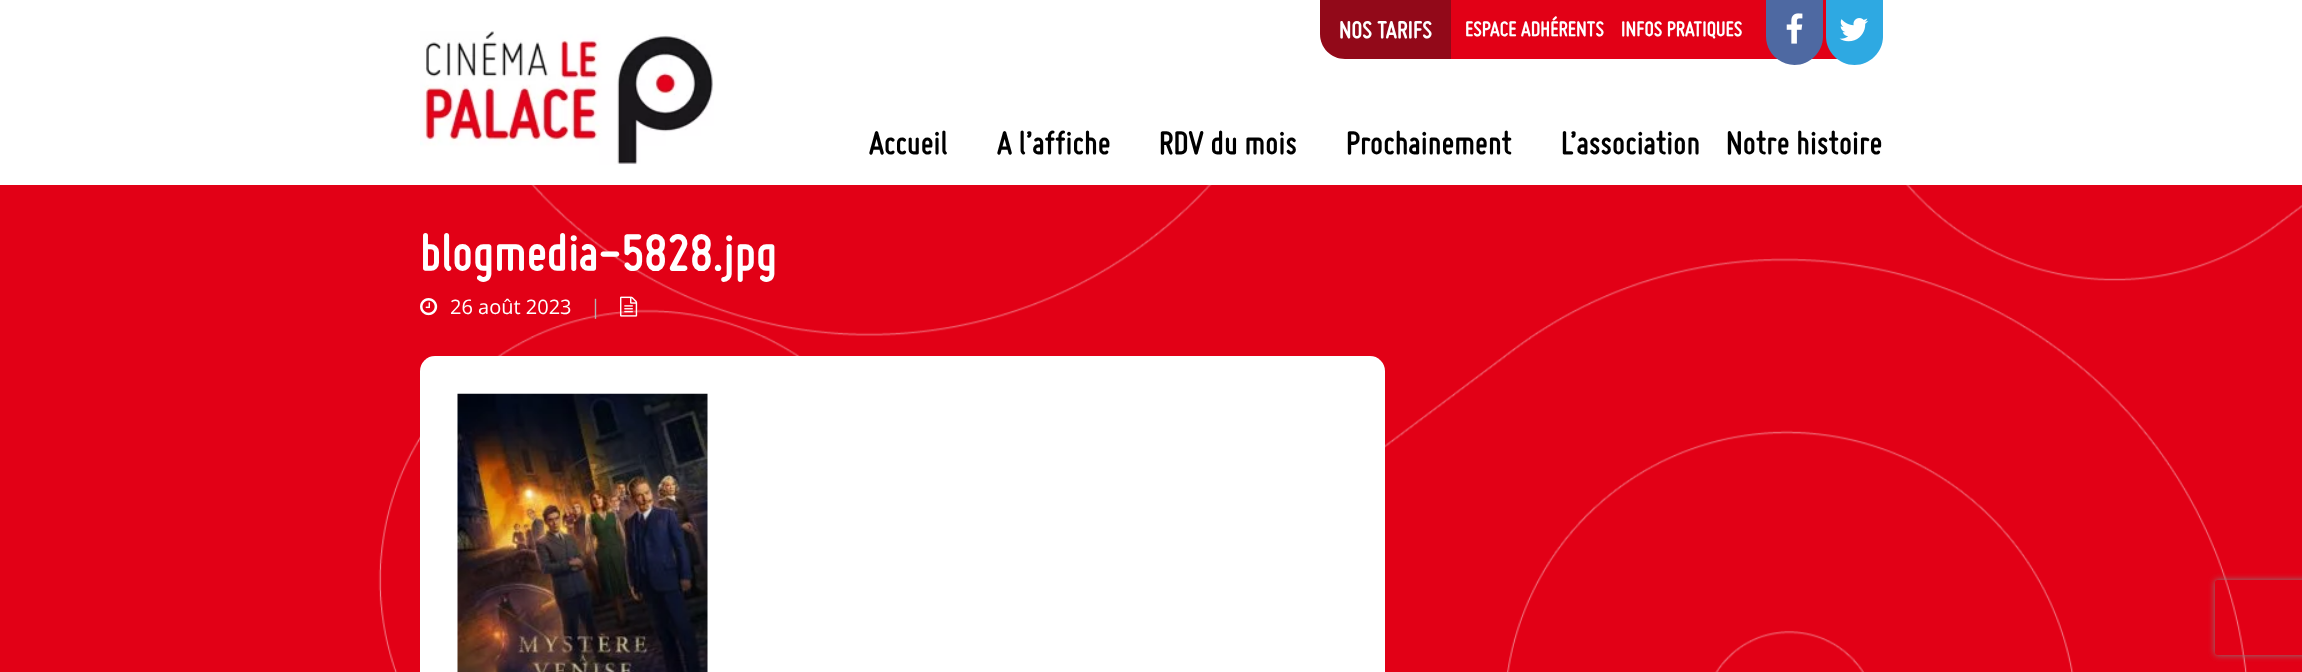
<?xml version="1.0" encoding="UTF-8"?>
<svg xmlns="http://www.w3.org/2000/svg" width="2302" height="672">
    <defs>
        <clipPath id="clip1"><path d="M 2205 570 H 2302 V 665 H 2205 Z M 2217.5 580 H 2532.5 C 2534 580 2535 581 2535 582.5 V 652.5 C 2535 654 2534 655 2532.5 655 H 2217.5 C 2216 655 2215 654 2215 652.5 V 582.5 C 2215 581 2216 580 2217.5 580 Z" clip-rule="evenodd"/></clipPath>
        <filter id="blur1" x="-50%" y="-200%" width="200%" height="500%"><feGaussianBlur stdDeviation="3"/></filter>
    </defs>
    <rect width="100%" height="100%" fill="#E20016"/>
    <rect x="0" y="0" width="2302" height="185" fill="#FFFFFF"/>
    <path d="M 1320 0 H 1883 V 26 C 1883 44 1868 59 1850 59 H 1353 C 1335 59 1320 44 1320 26 Z" fill="#E20016"/>
    <path d="M 1320 0 H 1451 V 59 H 1345 C 1331 59 1320 48 1320 34 Z" fill="#920919"/>
    <text x="1339" y="38" font-family="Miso" font-size="26" font-weight="700" font-style="italic" fill="#FFFFFF">NOS TARIFS</text>
    <text x="1465" y="36" font-family="Miso" font-size="22.5" font-weight="700" font-style="italic" fill="#FFFFFF">ESPACE ADHÉRENTS</text>
    <text x="1621" y="36" font-family="Miso" font-size="22.5" font-weight="700" font-style="italic" fill="#FFFFFF">INFOS PRATIQUES</text>
    <path d="M 1766 0 H 1823 V 36.5 C 1823 52 1810 65 1794.5 65 C 1779 65 1766 52 1766 36.5 Z" fill="#4E69A2"/>
    <image x="1786" y="13" width="17" height="31" href="img_01.png"/>
    <path d="M 1826 0 H 1883 V 36.5 C 1883 52 1870 65 1854.5 65 C 1839 65 1826 52 1826 36.5 Z" fill="#2EA9E2"/>
    <image x="1839" y="18" width="29" height="24" href="img_02.png"/>
    <image x="420" y="31" width="294" height="134" href="img_03.png"/>
    <text x="869" y="154" font-family="Miso" font-size="35" font-weight="700" font-style="italic" fill="#000000">Accueil</text>
    <text x="997" y="154" font-family="Miso" font-size="35" font-weight="700" font-style="italic" fill="#000000">A l’affiche</text>
    <text x="1159" y="154" font-family="Miso" font-size="35" font-weight="700" font-style="italic" fill="#000000">RDV du mois</text>
    <text x="1346" y="154" font-family="Miso" font-size="35" font-weight="700" font-style="italic" fill="#000000">Prochainement</text>
    <text x="1561" y="154" font-family="Miso" font-size="35" font-weight="700" font-style="italic" fill="#000000">L’association</text>
    <text x="1726" y="154" font-family="Miso" font-size="35" font-weight="700" font-style="italic" fill="#000000">Notre histoire</text>
    <image x="378" y="185" width="1924" height="487" href="img_07.png"/>
    <text x="420" y="270" font-family="Miso" font-size="55" font-weight="700" font-style="italic" fill="#FFFFFF">blogmedia-5828.jpg</text>
    <image x="420" y="298" width="18" height="18" href="img_04.png"/>
    <text x="450" y="314" font-family="Open Sans" font-size="20" fill="#FFFFFF">26 août 2023</text>
    <text x="590" y="314" font-family="Open Sans" font-size="20" fill="#B2B2B2">|</text>
    <image x="620" y="296" width="18" height="21" href="img_05.png"/>
    <rect x="420" y="356" width="965" height="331" rx="15" fill="#FFFFFF"/>
    <image x="457" y="393" width="251" height="279" href="img_06.png"/>
    <g clip-path="url(#clip1)">
        <rect x="2215" y="580" width="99" height="75" rx="2.5" fill="#808080" filter="url(#blur1)"/>
    </g>
</svg>
